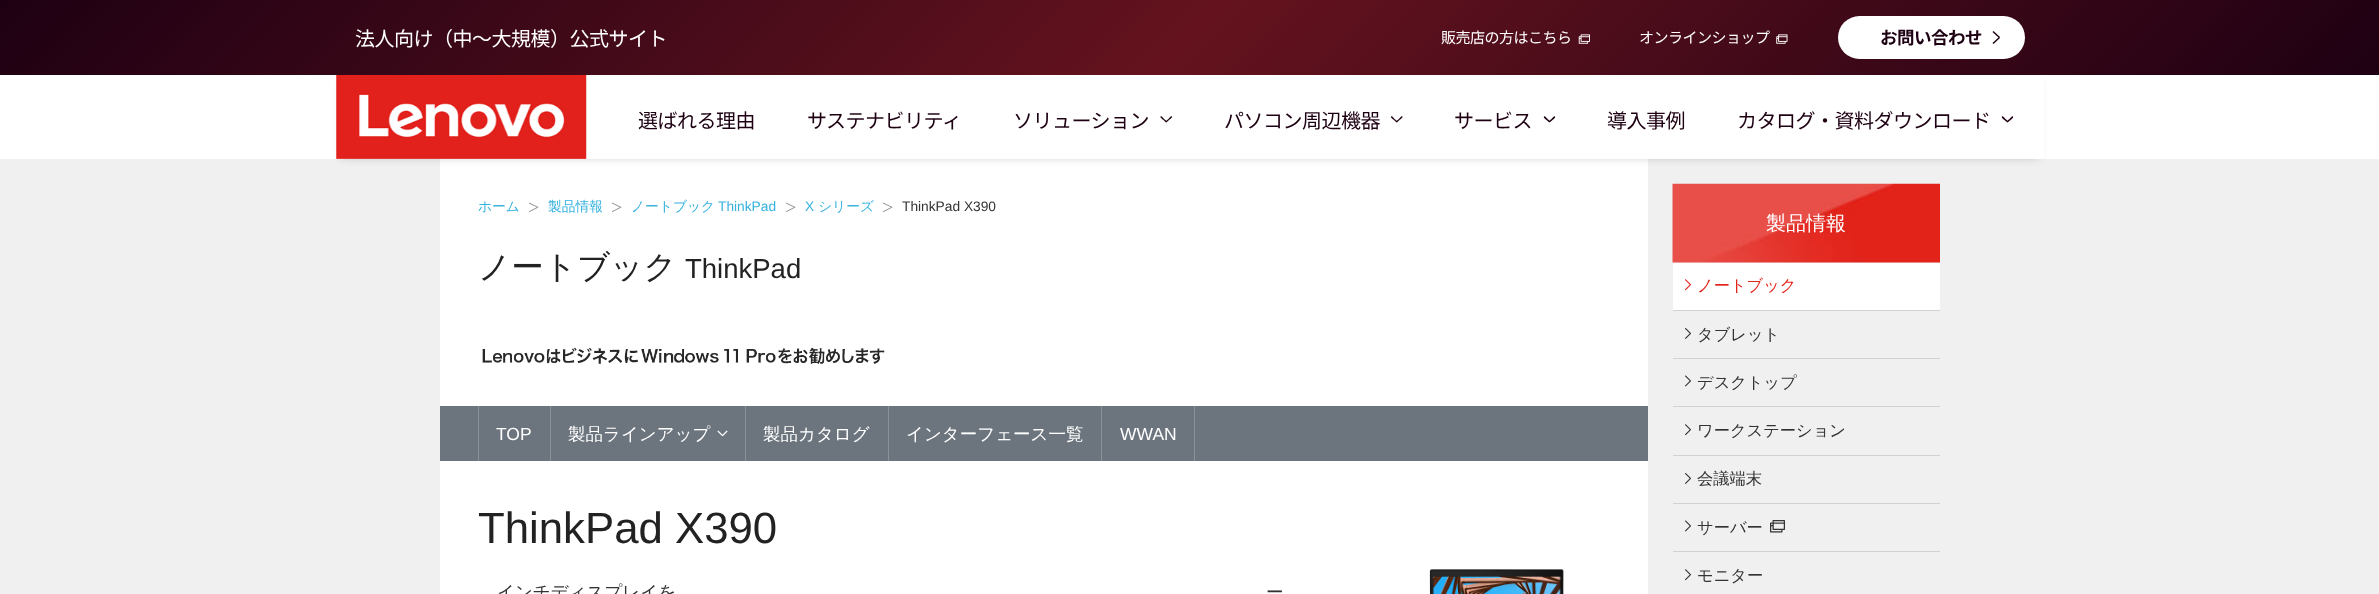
<?xml version="1.0" encoding="UTF-8"?>
<svg xmlns="http://www.w3.org/2000/svg" width="2379" height="594">
    <defs>
        <clipPath id="clip1"><path d="M 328 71 H 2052 V 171 H 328 Z M 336 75 H 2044 V 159 H 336 Z" clip-rule="evenodd"/></clipPath>
        <filter id="blur1" x="-50%" y="-200%" width="200%" height="500%"><feGaussianBlur stdDeviation="4"/></filter>
        <linearGradient id="g1" gradientUnits="userSpaceOnUse" x1="576" y1="-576" x2="1804" y2="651"><stop offset="0" stop-color="#1E0013"/><stop offset="0.5" stop-color="#64131E"/><stop offset="1" stop-color="#1E0013"/></linearGradient>
    </defs>
    <rect width="100%" height="100%" fill="#FFFFFF"/>
    <rect x="0" y="159" width="2379" height="435" fill="#F0F0F0"/>
    <rect x="440" y="159" width="1208" height="435" fill="#FFFFFF"/>
    <g clip-path="url(#clip1)">
        <rect x="341" y="84" width="1698" height="74" fill="#000000" fill-opacity="0.2" filter="url(#blur1)"/>
    </g>
    <rect x="0" y="0" width="2379" height="75" fill="url(#g1)"/>
    <text x="355" y="46" font-family="Noto Sans JP" font-size="20" letter-spacing="-0.5" fill="#FFFFFF">法人向け（中～大規模）公式サイト</text>
    <text x="1441" y="43" font-family="Noto Sans JP" font-size="15" letter-spacing="-0.5" fill="#FFFFFF">販売店の方はこちら</text>
    <image x="1578" y="34" width="12" height="10" href="img_01.png"/>
    <text x="1639" y="43" font-family="Noto Sans JP" font-size="15" letter-spacing="-0.5" fill="#FFFFFF">オンラインショップ</text>
    <image x="1776" y="34" width="12" height="10" href="img_02.png"/>
    <rect x="1838" y="16" width="187" height="43" rx="21.5" fill="#FFFFFF"/>
    <text x="1880" y="44" font-family="Noto Sans JP" font-size="17.5" font-weight="700" letter-spacing="-0.5" fill="#1E0013">お問い合わせ</text>
    <path d="M 1999 37 L 2000 38 L 1993.5 44 L 1992.5 43 Z" fill="#1E0013"/>
    <path d="M 2000 37 L 1999 38 L 1992.5 32 L 1993.5 31 Z" fill="#1E0013"/>
    <image x="336" y="75" width="251" height="84" href="img_03.png"/>
    <text x="638" y="128" font-family="Noto Sans JP" font-size="20" letter-spacing="-0.5" fill="#1E0013">選ばれる理由</text>
    <text x="807" y="128" font-family="Noto Sans JP" font-size="20" letter-spacing="-0.5" fill="#1E0013">サステナビリティ</text>
    <text x="1013" y="128" font-family="Noto Sans JP" font-size="20" letter-spacing="-0.5" fill="#1E0013">ソリューション</text>
    <path d="M 1172 116.5 C 1172.5 117.5 1169.5 119.5 1169 120 C 1168.5 120.5 1166.5 123 1165.5 122 C 1165 121.5 1168 119.5 1168.5 119 C 1169 118.5 1171 115.5 1172 116.5 Z" fill="#1E0013"/>
    <path d="M 1160.5 116.5 C 1161.5 115.5 1163.5 118.5 1164 119 C 1164.5 119.5 1167.5 121.5 1167 122 C 1166 123 1164 120.5 1163.5 120 C 1163 119.5 1160 117.5 1160.5 116.5 Z" fill="#1E0013"/>
    <text x="1224" y="128" font-family="Noto Sans JP" font-size="20" letter-spacing="-0.5" fill="#1E0013">パソコン周辺機器</text>
    <path d="M 1402.5 116.5 C 1403 117.5 1400 119.5 1399.5 120 C 1399 120.5 1397 123 1396 122 C 1395.5 121.5 1398.5 119.5 1399 119 C 1399.5 118.5 1401.5 115.5 1402.5 116.5 Z" fill="#1E0013"/>
    <path d="M 1391 116.5 C 1392 115.5 1394 118.5 1394.5 119 C 1395 119.5 1398 121.5 1397.5 122 C 1396.5 123 1394.5 120.5 1394 120 C 1393.5 119.5 1390.5 117.5 1391 116.5 Z" fill="#1E0013"/>
    <text x="1454" y="128" font-family="Noto Sans JP" font-size="20" letter-spacing="-0.5" fill="#1E0013">サービス</text>
    <path d="M 1555 116.5 C 1556 117.5 1553 119.5 1552.5 120 C 1552 120.5 1549.5 123 1549 122 C 1548 121.5 1551 119.5 1551.5 119 C 1552 118.5 1554.5 115.5 1555 116.5 Z" fill="#1E0013"/>
    <path d="M 1544 116.5 C 1544.5 115.5 1547 118.5 1547.5 119 C 1548 119.5 1551 121.5 1550 122 C 1549.5 123 1547 120.5 1546.5 120 C 1546 119.5 1543 117.5 1544 116.5 Z" fill="#1E0013"/>
    <text x="1607" y="128" font-family="Noto Sans JP" font-size="20" letter-spacing="-0.5" fill="#1E0013">導入事例</text>
    <text x="1737" y="128" font-family="Noto Sans JP" font-size="20" letter-spacing="-0.5" fill="#1E0013">カタログ・資料ダウンロード</text>
    <path d="M 2013 116.5 C 2014 117.5 2011 119.5 2010.5 120 C 2010 120.5 2007.5 123 2007 122 C 2006 121.5 2009 119.5 2009.5 119 C 2010 118.5 2012.5 115.5 2013 116.5 Z" fill="#1E0013"/>
    <path d="M 2002 116.5 C 2002.5 115.5 2005 118.5 2005.5 119 C 2006 119.5 2009 121.5 2008 122 C 2007.5 123 2005 120.5 2004.5 120 C 2004 119.5 2001 117.5 2002 116.5 Z" fill="#1E0013"/>
    <text x="478" y="211" font-family="WenQuanYi Zen Hei" font-size="13.75" font-weight="500" fill="#36B2DF">ホーム</text>
    <text x="528" y="214" font-family="Liberation Serif" font-size="20" fill="#919191">&gt;</text>
    <text x="548" y="211" font-family="WenQuanYi Zen Hei" font-size="13.75" font-weight="500" fill="#36B2DF">製品情報</text>
    <text x="611" y="214" font-family="Liberation Serif" font-size="20" fill="#919191">&gt;</text>
    <text x="631" y="211" font-family="WenQuanYi Zen Hei" font-size="13.75" font-weight="500" fill="#36B2DF">ノートブック</text>
    <text x="718" y="211" font-family="Liberation Sans" font-size="13.75" fill="#36B2DF">ThinkPad</text>
    <text x="785" y="214" font-family="Liberation Serif" font-size="20" fill="#919191">&gt;</text>
    <text x="805" y="211" font-family="Liberation Sans" font-size="13.75" fill="#36B2DF">X</text>
    <text x="818" y="211" font-family="WenQuanYi Zen Hei" font-size="13.75" font-weight="500" fill="#36B2DF">シリーズ</text>
    <text x="882" y="214" font-family="Liberation Serif" font-size="20" fill="#919191">&gt;</text>
    <text x="902" y="211" font-family="Liberation Sans" font-size="13.75" fill="#333333">ThinkPad X390</text>
    <text x="478" y="278" font-family="WenQuanYi Zen Hei" font-size="32.5" font-weight="500" fill="#222222">ノートブック</text>
    <text x="685" y="278" font-family="Liberation Sans" font-size="27.5" fill="#222222">ThinkPad</text>
    <image x="482" y="347" width="403" height="17" href="img_04.png"/>
    <rect x="440" y="406" width="1208" height="55" fill="#6C747D"/>
    <rect x="478" y="406" width="1" height="55" fill="#899097"/>
    <text x="496" y="440" font-family="Liberation Sans" font-size="17.5" fill="#FFFFFF">TOP</text>
    <rect x="550" y="406" width="1" height="55" fill="#899097"/>
    <text x="568" y="440" font-family="WenQuanYi Zen Hei" font-size="17.5" font-weight="500" fill="#FFFFFF">製品ラインアップ</text>
    <image x="717" y="430" width="11" height="7" href="img_05.png"/>
    <rect x="745" y="406" width="1" height="55" fill="#899097"/>
    <text x="763" y="440" font-family="WenQuanYi Zen Hei" font-size="17.5" font-weight="500" fill="#FFFFFF">製品カタログ</text>
    <rect x="888" y="406" width="1" height="55" fill="#899097"/>
    <text x="906" y="440" font-family="WenQuanYi Zen Hei" font-size="17.5" font-weight="500" fill="#FFFFFF">インターフェース一覧</text>
    <rect x="1194" y="406" width="1" height="55" fill="#899097"/>
    <rect x="1101" y="406" width="1" height="55" fill="#899097"/>
    <text x="1120" y="440" font-family="Liberation Sans" font-size="17.5" fill="#FFFFFF">WWAN</text>
    <text x="478" y="543" font-family="Liberation Sans" font-size="43.75" fill="#222222">ThinkPad X390</text>
    <text x="497" y="598" font-family="WenQuanYi Zen Hei" font-size="17.5" font-weight="500" fill="#333333">インチディスプレイを</text>
    <text x="1266" y="598" font-family="WenQuanYi Zen Hei" font-size="17.5" font-weight="500" fill="#333333">ー</text>
    <image x="1429" y="569" width="135" height="25" href="img_06.png"/>
    <image x="1672" y="183" width="268" height="80" href="img_07.png"/>
    <text x="1766" y="230" font-family="WenQuanYi Zen Hei" font-size="20" font-weight="500" fill="#FFFFFF">製品情報</text>
    <rect x="1673" y="310" width="267" height="1" fill="#D1D1D1"/>
    <rect x="1673" y="263" width="267" height="47" fill="#FFFFFF"/>
    <image x="1685" y="279" width="6" height="12" href="img_08.png"/>
    <text x="1697" y="291" font-family="WenQuanYi Zen Hei" font-size="16.25" font-weight="500" fill="#E2231A">ノートブック</text>
    <rect x="1673" y="358" width="267" height="1" fill="#D1D1D1"/>
    <image x="1685" y="328" width="6" height="11" href="img_09.png"/>
    <text x="1697" y="340" font-family="WenQuanYi Zen Hei" font-size="16.25" font-weight="500" fill="#333333">タブレット</text>
    <rect x="1673" y="406" width="267" height="1" fill="#D1D1D1"/>
    <image x="1685" y="375" width="6" height="12" href="img_10.png"/>
    <text x="1697" y="388" font-family="WenQuanYi Zen Hei" font-size="16.25" font-weight="500" fill="#333333">デスクトップ</text>
    <rect x="1673" y="455" width="267" height="1" fill="#D1D1D1"/>
    <image x="1685" y="424" width="6" height="12" href="img_11.png"/>
    <text x="1697" y="436" font-family="WenQuanYi Zen Hei" font-size="16.25" font-weight="500" fill="#333333">ワークステーション</text>
    <rect x="1673" y="503" width="267" height="1" fill="#D1D1D1"/>
    <image x="1685" y="473" width="6" height="11" href="img_09.png"/>
    <text x="1697" y="484" font-family="WenQuanYi Zen Hei" font-size="16.25" font-weight="500" fill="#333333">会議端末</text>
    <rect x="1673" y="551" width="267" height="1" fill="#D1D1D1"/>
    <image x="1685" y="520" width="6" height="12" href="img_10.png"/>
    <text x="1697" y="533" font-family="WenQuanYi Zen Hei" font-size="16.25" font-weight="500" fill="#333333">サーバー</text>
    <image x="1770" y="520" width="15" height="13" href="img_12.png"/>
    <image x="1685" y="569" width="6" height="12" href="img_11.png"/>
    <text x="1697" y="581" font-family="WenQuanYi Zen Hei" font-size="16.25" font-weight="500" fill="#333333">モニター</text>
</svg>
